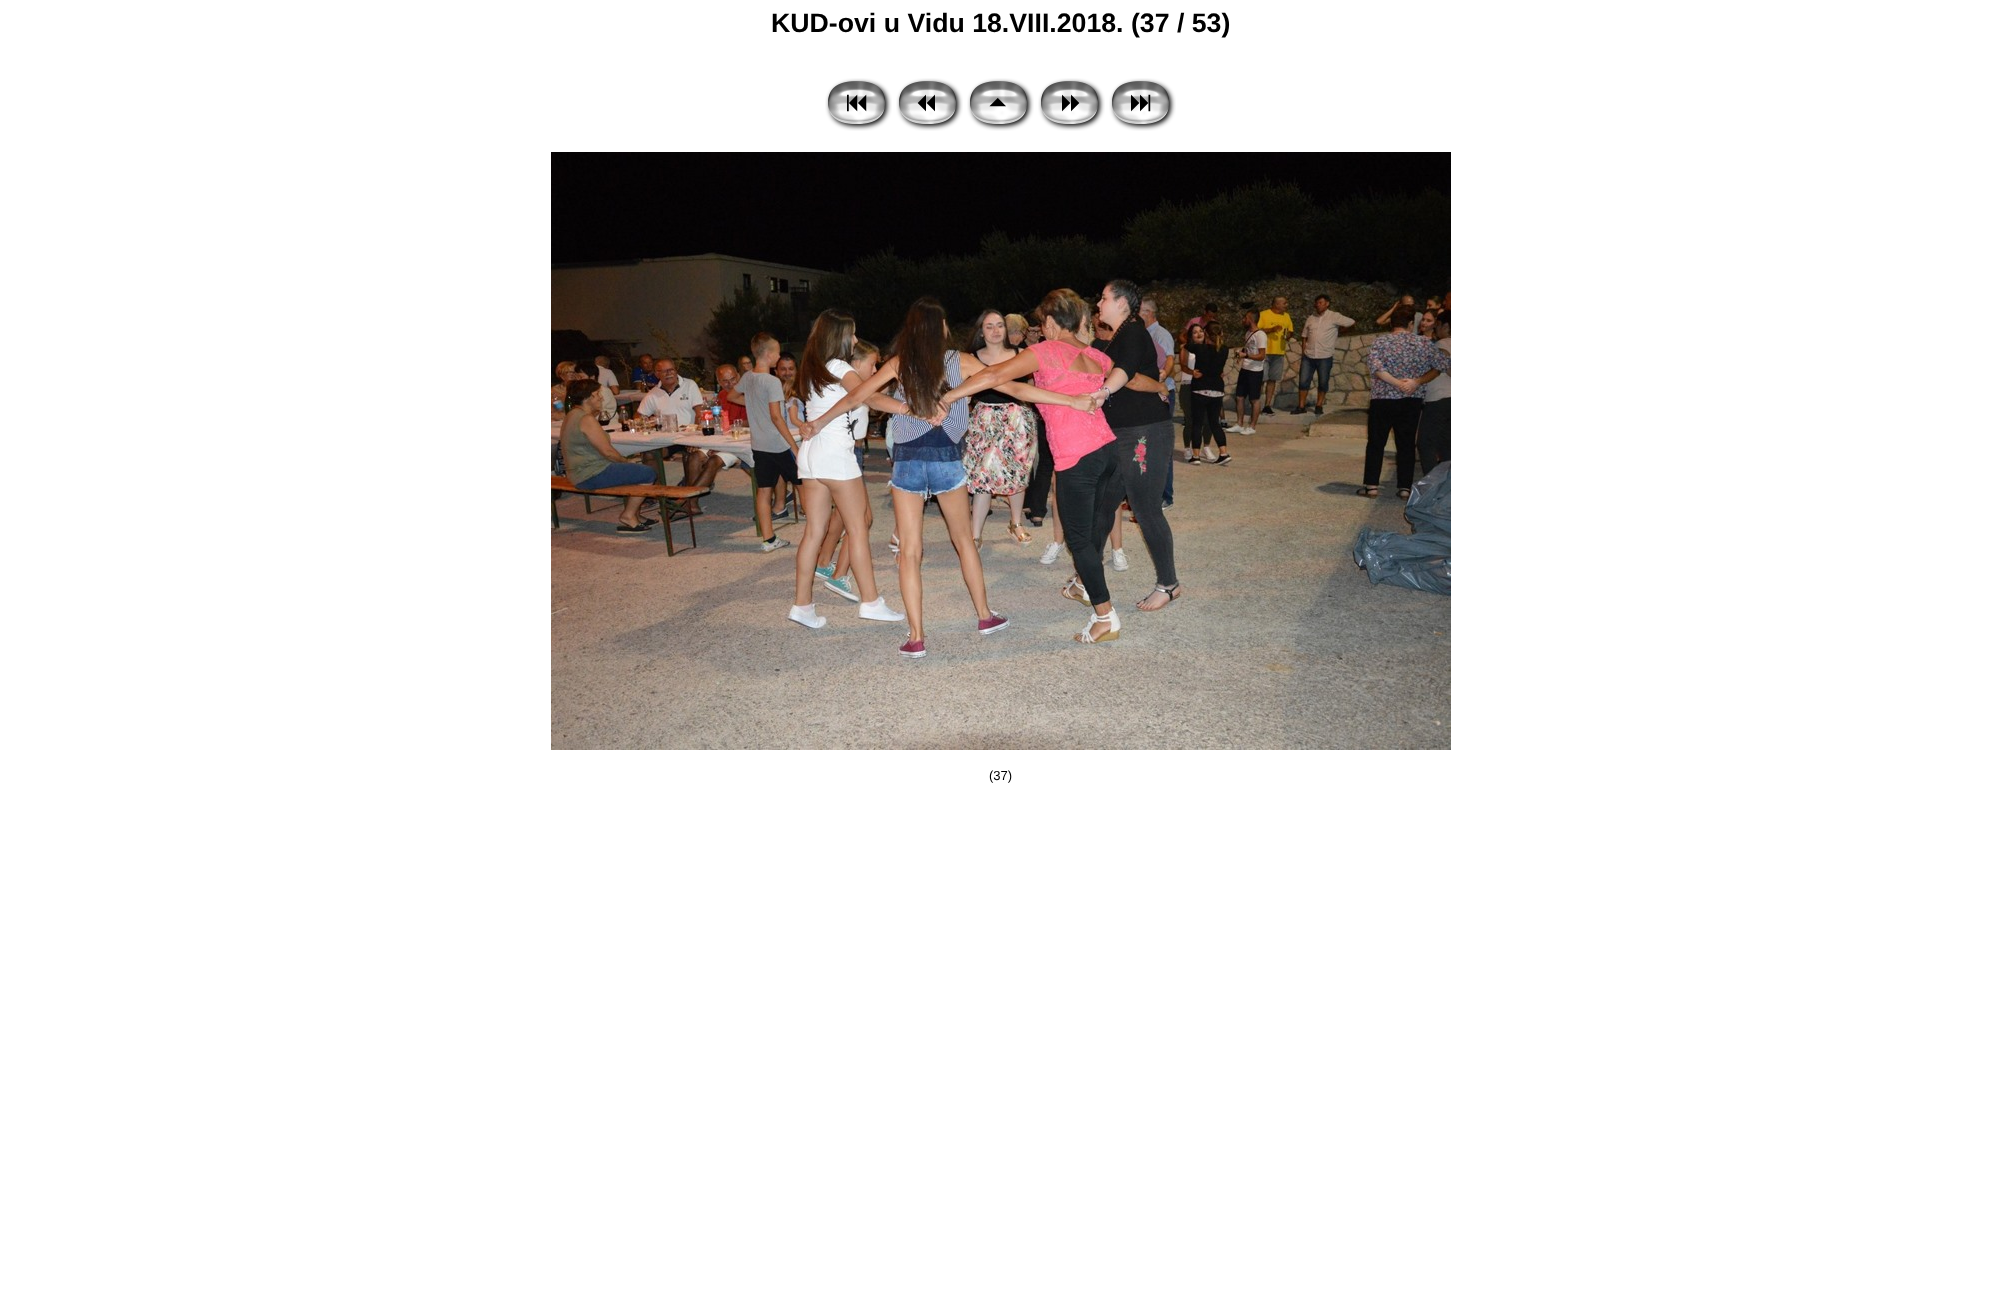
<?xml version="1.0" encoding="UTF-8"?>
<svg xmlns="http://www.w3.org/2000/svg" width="2001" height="1310">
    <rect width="100%" height="100%" fill="#FFFFFF"/>
    <text x="771" y="32" font-family="Liberation Sans" font-size="26.7" font-weight="700" fill="#000000">KUD-ovi u Vidu 18.VIII.2018. (37 / 53)</text>
    <image x="825" y="78" width="67" height="53" href="img_01.png"/>
    <image x="896" y="78" width="67" height="53" href="img_02.png"/>
    <image x="967" y="78" width="67" height="53" href="img_03.png"/>
    <image x="1038" y="78" width="67" height="53" href="img_04.png"/>
    <image x="1109" y="78" width="67" height="53" href="img_05.png"/>
    <image x="551" y="152" width="900" height="598" href="img_06.png"/>
    <text x="989" y="780" font-family="Liberation Sans" font-size="13" fill="#000000">(37)</text>
</svg>
